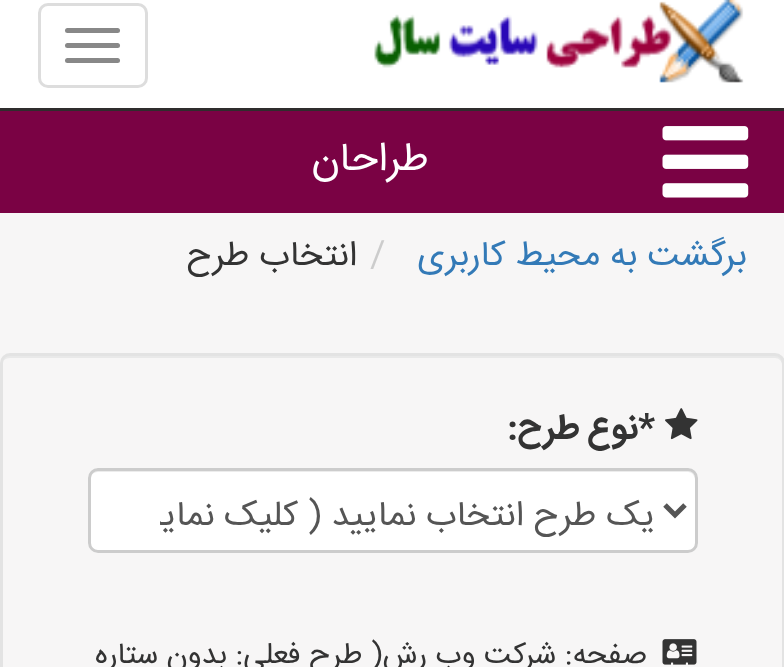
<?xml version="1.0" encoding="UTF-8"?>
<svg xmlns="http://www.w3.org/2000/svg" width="784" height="667">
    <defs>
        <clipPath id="clip1"><rect x="160" y="485" width="495" height="65"/></clipPath>
    </defs>
    <rect width="100%" height="100%" fill="#F7F6F6"/>
    <rect x="0" y="0" width="784" height="108" fill="#FFFFFF"/>
    <rect x="0" y="108" width="784" height="3" fill="#2F2D2D"/>
    <image x="374" y="0" width="370" height="83" href="img_01.png"/>
    <rect x="39.5" y="4.5" width="107" height="82" rx="8.5" fill="none" stroke="#DDDDDD" stroke-width="3"/>
    <rect x="65" y="28" width="55" height="5" rx="2.5" fill="#888888"/>
    <rect x="65" y="43" width="55" height="5" rx="2.5" fill="#888888"/>
    <rect x="65" y="58" width="55" height="5" rx="2.5" fill="#888888"/>
    <rect x="0" y="111" width="784" height="102" fill="#7A0244"/>
    <image x="662" y="126" width="87" height="72" href="img_02.png"/>
    <text x="429" y="170" font-family="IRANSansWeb" font-size="40" direction="rtl" fill="#FFFFFF">طراحان</text>
    <text x="747" y="265" font-family="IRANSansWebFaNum" font-size="35" direction="rtl" fill="#337AB7">برگشت به محیط کاربری</text>
    <text x="370" y="265" font-family="IRANSansWebFaNum" font-size="35" fill="#CCCCCC">/</text>
    <text x="357" y="265" font-family="IRANSansWebFaNum" font-size="35" direction="rtl" fill="#333333">انتخاب طرح</text>
    <path d="M 10 358 H 775 C 779 358 782 361 782 365 V 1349 C 783 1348 783 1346 783 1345 V 363 C 783 359 779 355 775 355 H 11 C 7 355 4 358 3 361 C 5 359 7 358 10 358 Z" fill="#E9E9E9"/>
    <rect x="1.5" y="354.5" width="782" height="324" rx="8.5" fill="none" stroke="#E3E3E3" stroke-width="3"/>
    <image x="665" y="408" width="33" height="32" href="img_03.png"/>
    <text x="655" y="438" font-family="IRANSansWebFaNum" font-size="35" font-weight="700" direction="rtl" fill="#333333">*نوع طرح:</text>
    <rect x="88" y="468" width="610" height="85" rx="10" fill="#FFFFFF"/>
    <path d="M 98 472 H 688 C 692 472 695 476 695 480 V 478 C 695 474 691 470 687 470 H 98 C 94 470 90 474 90 478 V 480 C 90 476 93 472 98 472 Z" fill="#ECECEC"/>
    <rect x="89.5" y="469.5" width="607" height="82" rx="8.5" fill="none" stroke="#CCCCCC" stroke-width="3"/>
    <path d="M 665 505 L 675 515 L 685 505" fill="none" stroke="#555555" stroke-width="5"/>
    <g clip-path="url(#clip1)">
        <text x="655" y="525" font-family="IRANSansWebFaNum" font-size="35" direction="rtl" fill="#555555">یک طرح انتخاب نمایید ( کلیک نمایید )...</text>
    </g>
    <image x="662" y="639" width="35" height="26" href="img_04.png"/>
    <text x="647" y="663" font-family="IRANSansWebFaNum" font-size="29.75" direction="rtl" fill="#333333">صفحه: شرکت وب رش( طرح فعلی: بدون ستاره</text>
</svg>
